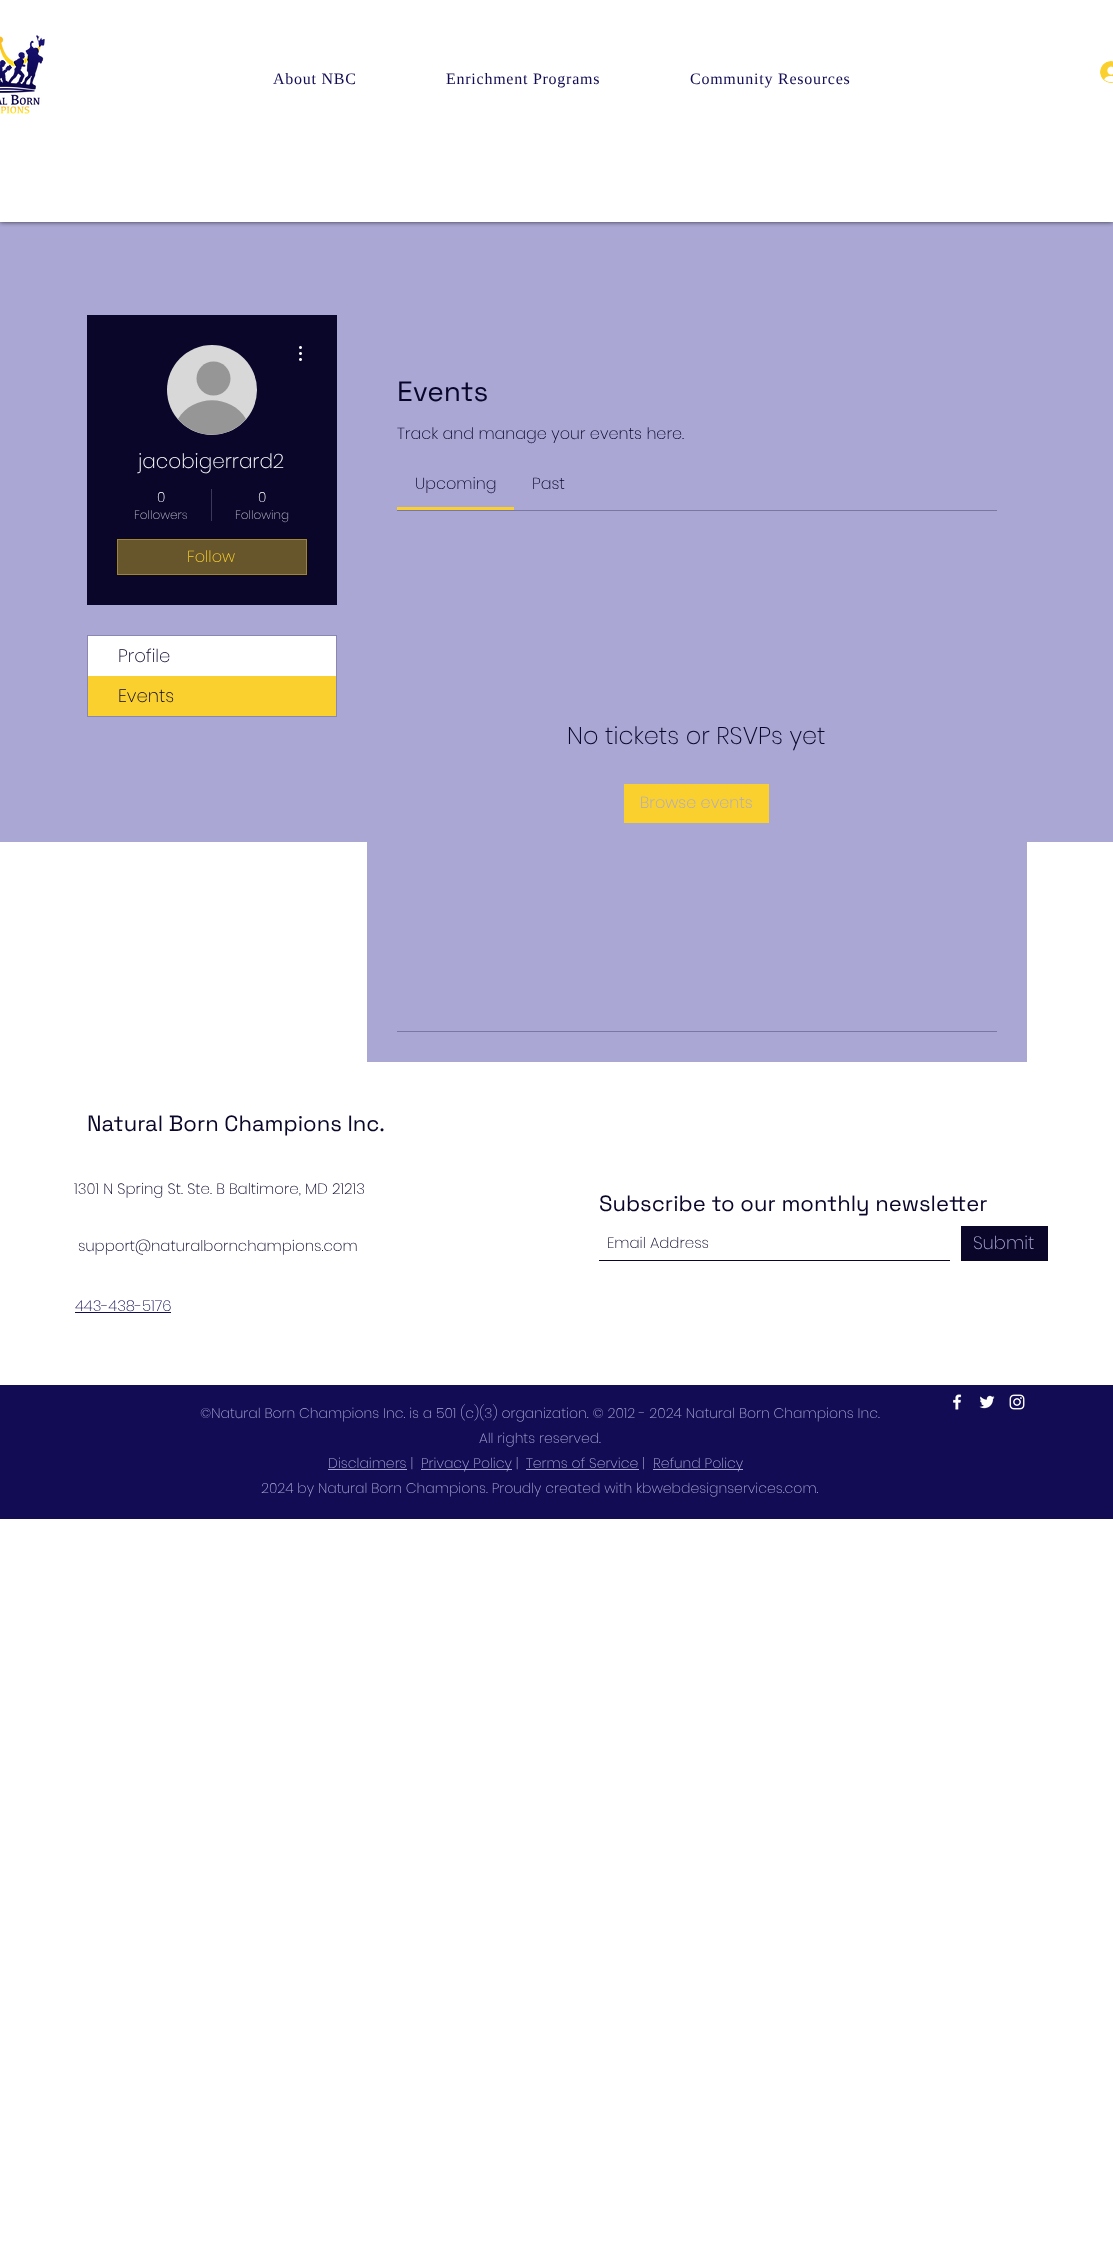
<?xml version="1.0" encoding="UTF-8"?>
<svg xmlns="http://www.w3.org/2000/svg" width="1113" height="2250">
    <defs>
        <clipPath id="clip1"><rect x="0" y="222" width="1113" height="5"/></clipPath>
        <filter id="blur1" x="-50%" y="-200%" width="200%" height="500%"><feGaussianBlur stdDeviation="2.5"/></filter>
    </defs>
    <rect width="100%" height="100%" fill="#FFFFFF"/>
    <rect x="0" y="222" width="1113" height="620" fill="#AAA7D4"/>
    <g clip-path="url(#clip1)">
        <rect x="0" y="0" width="1113" height="222" fill="#000000" fill-opacity="0.7" filter="url(#blur1)"/>
    </g>
    <image x="0" y="35" width="45" height="79" href="img_01.png"/>
    <text x="273" y="84" font-family="Liberation Serif" font-size="16" letter-spacing="0.75" fill="#110C54">About NBC</text>
    <text x="446" y="84" font-family="Liberation Serif" font-size="16" letter-spacing="0.75" fill="#110C54">Enrichment Programs</text>
    <text x="690" y="84" font-family="Liberation Serif" font-size="16" letter-spacing="0.75" fill="#110C54">Community Resources</text>
    <image x="1100" y="61" width="13" height="22" href="img_02.png"/>
    <rect x="87" y="315" width="250" height="290" fill="#09062A"/>
    <circle cx="212" cy="390" r="45" fill="#D8D8D8"/>
    <circle cx="213.5" cy="378.5" r="17" fill="#969696"/>
    <path d="M 246 419 C 228 440 196 440 178 419 C 193 394 231 394 246 419 Z" fill="#969696"/>
    <image x="299" y="346" width="3" height="15" href="img_03.png"/>
    <text x="138" y="468" font-family="Poppins" font-size="20" font-weight="200" fill="#FFFFFF">jacobigerrard2</text>
    <text x="157" y="502" font-family="Poppins" font-size="14" font-weight="200" fill="#FFFFFF">0</text>
    <text x="134" y="519" font-family="Poppins" font-size="12" font-weight="200" fill="#B5B4BF">Followers</text>
    <rect x="211" y="489" width="1" height="32" fill="#3A3855"/>
    <text x="258" y="502" font-family="Poppins" font-size="14" font-weight="200" fill="#FFFFFF">0</text>
    <text x="235" y="519" font-family="Poppins" font-size="12" font-weight="200" fill="#B5B4BF">Following</text>
    <rect x="117.5" y="539.5" width="189" height="35" fill="#67552C" stroke="#A0852D"/>
    <text x="187" y="562" font-family="Poppins" font-size="16" font-weight="200" fill="#F9D02E">Follow</text>
    <rect x="87.5" y="635.5" width="249" height="81" fill="none" stroke="#8A87B2"/>
    <rect x="88" y="636" width="248" height="40" fill="#FFFFFF"/>
    <text x="118" y="662" font-family="Poppins" font-size="18" font-weight="200" fill="#09062A">Profile</text>
    <rect x="88" y="676" width="248" height="40" fill="#F9D02E"/>
    <text x="118" y="702" font-family="Poppins" font-size="18" font-weight="200" fill="#09062A">Events</text>
    <rect x="367" y="842" width="660" height="220" fill="#AAA7D4"/>
    <text x="397" y="401" font-family="Space Grotesk" font-size="28" fill="#09062A">Events</text>
    <text x="397" y="439" font-family="Poppins" font-size="16" font-weight="200" fill="#09062A">Track and manage your events here.</text>
    <rect x="397" y="507" width="117" height="3" fill="#F9D02E"/>
    <text x="415" y="489" font-family="Poppins" font-size="16" font-weight="200" fill="#09062A">Upcoming</text>
    <text x="532" y="489" font-family="Poppins" font-size="16" font-weight="200" fill="#09062A">Past</text>
    <rect x="397" y="510" width="600" height="1" fill="#7A77A1"/>
    <text x="567" y="744" font-family="Poppins" font-size="24" font-weight="200" fill="#09062A">No tickets or RSVPs yet</text>
    <rect x="624" y="784" width="145" height="39" fill="#F9D02E"/>
    <text x="640" y="808" font-family="Poppins" font-size="16" font-weight="200" fill="#AAA7D4">Browse events</text>
    <rect x="397" y="1031" width="600" height="1" fill="#7A77A1"/>
    <text x="87" y="1131" font-family="Space Grotesk" font-size="22" fill="#09062A">Natural Born Champions Inc.</text>
    <text x="74" y="1194" font-family="Poppins" font-size="15" font-weight="200" fill="#09062A">1301 N Spring St. Ste. B Baltimore, MD 21213</text>
    <text x="78" y="1251" font-family="Poppins" font-size="15" font-weight="200" fill="#09062A">support@naturalbornchampions.com</text>
    <text x="599" y="1211" font-family="Space Grotesk" font-size="22" fill="#09062A">Subscribe to our monthly newsletter</text>
    <rect x="599" y="1260" width="351" height="1" fill="#09062A"/>
    <text x="607" y="1248" font-family="Poppins" font-size="15" font-weight="200" fill="#09062A">Email Address</text>
    <rect x="961" y="1226" width="87" height="35" fill="#09062A"/>
    <text x="973" y="1249" font-family="Poppins" font-size="18" font-weight="200" fill="#AAA7D4">Submit</text>
    <text x="75" y="1311" font-family="Poppins" font-size="15" font-weight="200" fill="#110C54">443-438-5176</text>
    <rect x="75" y="1312" width="96" height="1" fill="#110C54"/>
    <rect x="0" y="1385" width="1113" height="134" fill="#110C54"/>
    <image x="953" y="1394" width="9" height="16" href="img_04.png"/>
    <image x="979" y="1395" width="16" height="14" href="img_05.png"/>
    <image x="1009" y="1394" width="16" height="16" href="img_06.png"/>
    <text x="200" y="1418" font-family="Poppins" font-size="14" font-weight="200" fill="#AAA7D4">©Natural Born Champions Inc. is a 501 (c)(3) organization. © 2012 - 2024 Natural Born Champions Inc.</text>
    <text x="479" y="1443" font-family="Poppins" font-size="14" font-weight="200" fill="#AAA7D4">All rights reserved.</text>
    <rect x="328" y="1469" width="79" height="1" fill="#AAA7D4"/>
    <text x="328" y="1468" font-family="Poppins" font-size="14" font-weight="200" fill="#AAA7D4">Disclaimers |</text>
    <rect x="421" y="1469" width="91" height="1" fill="#AAA7D4"/>
    <text x="421" y="1468" font-family="Poppins" font-size="14" font-weight="200" fill="#AAA7D4">Privacy Policy |</text>
    <rect x="526" y="1469" width="113" height="1" fill="#AAA7D4"/>
    <text x="526" y="1468" font-family="Poppins" font-size="14" font-weight="200" fill="#AAA7D4">Terms of Service |</text>
    <rect x="653" y="1469" width="90" height="1" fill="#AAA7D4"/>
    <text x="653" y="1468" font-family="Poppins" font-size="14" font-weight="200" fill="#AAA7D4">Refund Policy</text>
    <text x="261" y="1493" font-family="Poppins" font-size="14" font-weight="200" fill="#AAA7D4">2024 by Natural Born Champions. Proudly created with kbwebdesignservices.com.</text>
</svg>
